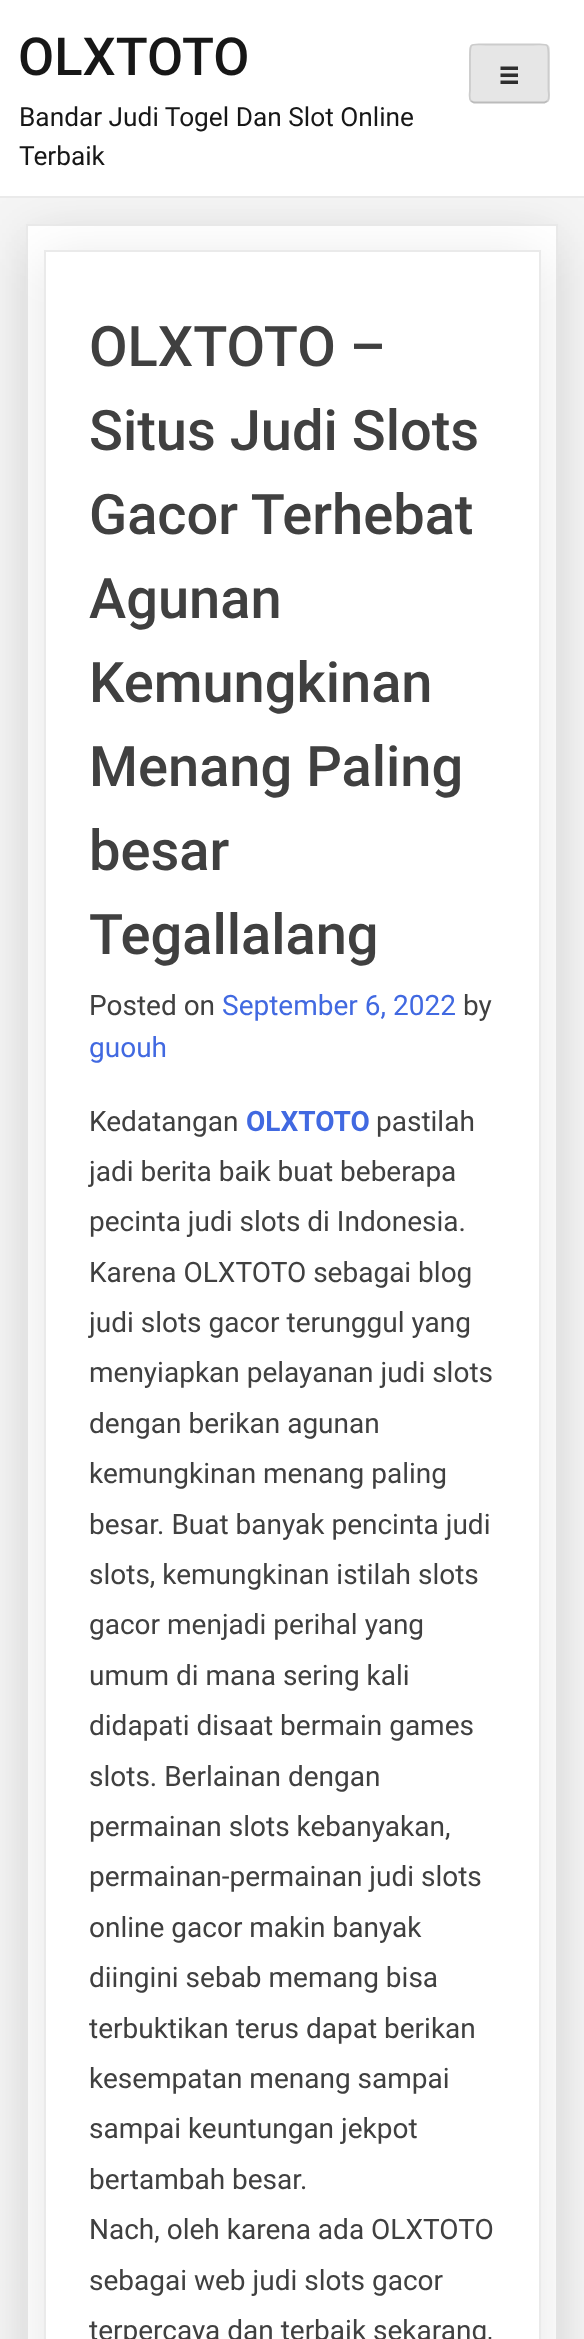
<?xml version="1.0" encoding="UTF-8"?>
<svg xmlns="http://www.w3.org/2000/svg" width="584" height="2339">
    <defs>
        <filter id="blur1" x="-50%" y="-200%" width="200%" height="500%"><feGaussianBlur stdDeviation="26"/></filter>
    </defs>
    <rect width="100%" height="100%" fill="#F5F5F5"/>
    <rect x="26" y="233" width="532" height="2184" fill="#000000" fill-opacity="0.1" filter="url(#blur1)"/>
    <rect x="27" y="225" width="530" height="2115" fill="#FFFFFF" stroke="#EAEAEA" stroke-width="2"/>
    <rect x="44" y="259" width="497" height="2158" fill="#000000" fill-opacity="0.1" filter="url(#blur1)"/>
    <rect x="0" y="0" width="584" height="196" fill="#FFFFFF"/>
    <rect x="0" y="196" width="584" height="2" fill="#EAEAEA"/>
    <text x="18" y="75" font-family="Roboto" font-size="52.5" font-weight="500" fill="#171717">OLXTOTO</text>
    <text font-family="Roboto" font-size="26.25" fill="#171717">
        <tspan x="19" y="126">Bandar Judi Togel Dan Slot Online</tspan>
        <tspan x="19" y="165">Terbaik</tspan>
    </text>
    <rect x="469" y="44" width="81" height="59" rx="5" fill="#E6E6E6"/>
    <path d="M 547.5 101 L 544.5 102.5 H 474 L 471 101" fill="none" stroke="#BBBBBB" stroke-width="1.8"/>
    <path d="M 471 101 C 468.5 98.5 470 92 470 90 V 57 C 470 42 470 44.5 486 44.5 H 532.5 C 548.5 44.5 548.5 42 548.5 57 V 90 C 548.5 92 550 98.5 547.5 101" fill="none" stroke="#CCCCCC" stroke-width="1.8"/>
    <image x="500" y="66" width="18" height="18" href="img_01.png"/>
    <rect x="45" y="251" width="495" height="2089" fill="#FFFFFF" stroke="#EAEAEA" stroke-width="2"/>
    <text font-family="Roboto" font-size="56" font-weight="500" fill="#404040">
        <tspan x="89" y="366">OLXTOTO –</tspan>
        <tspan x="89" y="450">Situs Judi Slots</tspan>
        <tspan x="89" y="534">Gacor Terhebat</tspan>
        <tspan x="89" y="618">Agunan</tspan>
        <tspan x="89" y="702">Kemungkinan</tspan>
        <tspan x="89" y="786">Menang Paling</tspan>
        <tspan x="89" y="870">besar</tspan>
        <tspan x="89" y="954">Tegallalang</tspan>
    </text>
    <text x="89" y="1015" font-family="Roboto" font-size="28" fill="#404040">Posted on</text>
    <text x="222" y="1015" font-family="Roboto" font-size="28" fill="#4169E1">September 6, 2022</text>
    <text x="463" y="1015" font-family="Roboto" font-size="28" fill="#404040">by</text>
    <text x="89" y="1057" font-family="Roboto" font-size="28" fill="#4169E1">guouh</text>
    <text x="89" y="1131" font-family="Roboto" font-size="28" fill="#404040">Kedatangan</text>
    <text x="246" y="1131" font-family="Roboto" font-size="28" font-weight="700" fill="#4169E1">OLXTOTO</text>
    <text x="376" y="1131" font-family="Roboto" font-size="28" fill="#404040">pastilah</text>
    <text font-family="Roboto" font-size="28" fill="#404040">
        <tspan x="89" y="1181">jadi berita baik buat beberapa</tspan>
        <tspan x="89" y="1231">pecinta judi slots di Indonesia.</tspan>
        <tspan x="89" y="1282">Karena OLXTOTO sebagai blog</tspan>
        <tspan x="89" y="1332">judi slots gacor terunggul yang</tspan>
        <tspan x="89" y="1382">menyiapkan pelayanan judi slots</tspan>
        <tspan x="89" y="1433">dengan berikan agunan</tspan>
        <tspan x="89" y="1483">kemungkinan menang paling</tspan>
        <tspan x="89" y="1534">besar. Buat banyak pencinta judi</tspan>
        <tspan x="89" y="1584">slots, kemungkinan istilah slots</tspan>
        <tspan x="89" y="1634">gacor menjadi perihal yang</tspan>
        <tspan x="89" y="1685">umum di mana sering kali</tspan>
        <tspan x="89" y="1735">didapati disaat bermain games</tspan>
        <tspan x="89" y="1786">slots. Berlainan dengan</tspan>
        <tspan x="89" y="1836">permainan slots kebanyakan,</tspan>
        <tspan x="89" y="1886">permainan-permainan judi slots</tspan>
        <tspan x="89" y="1937">online gacor makin banyak</tspan>
        <tspan x="89" y="1987">diingini sebab memang bisa</tspan>
        <tspan x="89" y="2038">terbuktikan terus dapat berikan</tspan>
        <tspan x="89" y="2088">kesempatan menang sampai</tspan>
        <tspan x="89" y="2138">sampai keuntungan jekpot</tspan>
        <tspan x="89" y="2189">bertambah besar.</tspan>
        <tspan x="89" y="2239">Nach, oleh karena ada OLXTOTO</tspan>
        <tspan x="89" y="2290">sebagai web judi slots gacor</tspan>
        <tspan x="89" y="2340">terpercaya dan terbaik sekarang,</tspan>
    </text>
</svg>
